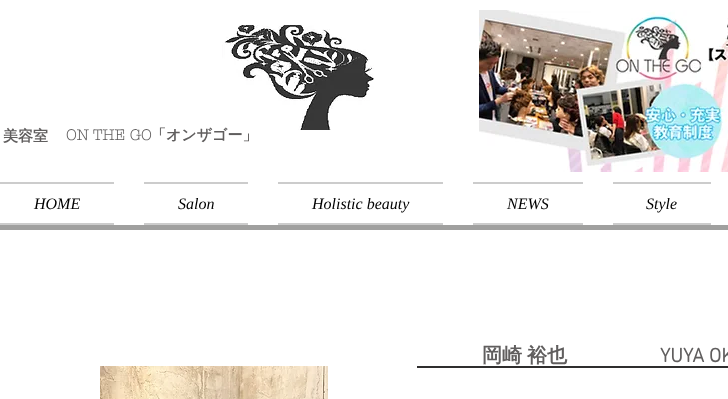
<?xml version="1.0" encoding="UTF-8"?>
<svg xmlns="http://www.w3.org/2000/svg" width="728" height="399">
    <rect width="100%" height="100%" fill="#FFFFFF"/>
    <image x="222" y="25" width="152" height="105" href="img_01.png"/>
    <image x="479" y="10" width="249" height="162" href="img_02.png"/>
    <text x="3" y="141" font-family="WenQuanYi Zen Hei" font-size="15" font-weight="700" fill="#605E5E">美容室</text>
    <text x="66" y="140" font-family="'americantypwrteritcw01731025'" font-size="15" font-weight="700" fill="#605E5E">ON THE GO</text>
    <text x="151" y="140" font-family="WenQuanYi Zen Hei" font-size="15" font-weight="700" fill="#605E5E">「オンザゴー」</text>
    <rect x="0" y="182" width="114" height="2" fill="#CCCCCC"/>
    <rect x="0" y="223" width="114" height="2" fill="#CCCCCC"/>
    <text x="34" y="209" font-family="Liberation Serif" font-size="16" font-style="italic" fill="#000000">HOME</text>
    <rect x="144" y="182" width="104" height="2" fill="#CCCCCC"/>
    <rect x="144" y="223" width="104" height="2" fill="#CCCCCC"/>
    <text x="178" y="209" font-family="Liberation Serif" font-size="16" font-style="italic" fill="#000000">Salon</text>
    <rect x="278" y="182" width="165" height="2" fill="#CCCCCC"/>
    <rect x="278" y="223" width="165" height="2" fill="#CCCCCC"/>
    <text x="312" y="209" font-family="Liberation Serif" font-size="16" font-style="italic" fill="#000000">Holistic beauty</text>
    <rect x="473" y="182" width="110" height="2" fill="#CCCCCC"/>
    <rect x="473" y="223" width="110" height="2" fill="#CCCCCC"/>
    <text x="507" y="209" font-family="Liberation Serif" font-size="16" font-style="italic" fill="#000000">NEWS</text>
    <rect x="613" y="182" width="98" height="2" fill="#CCCCCC"/>
    <rect x="613" y="223" width="98" height="2" fill="#CCCCCC"/>
    <text x="646" y="209" font-family="Liberation Serif" font-size="16" font-style="italic" fill="#000000">Style</text>
    <rect x="0" y="225" width="728" height="5" fill="#A0A09F"/>
    <text x="482" y="362" font-family="WenQuanYi Zen Hei" font-size="20" font-weight="700" fill="#605E5E">岡崎</text>
    <text x="527" y="362" font-family="WenQuanYi Zen Hei" font-size="20" font-weight="700" fill="#605E5E">裕也</text>
    <text x="660" y="362" font-family="'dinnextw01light'" font-size="20" font-weight="700" fill="#605E5E">YUYA OK</text>
    <image x="100" y="366" width="228" height="33" href="img_03.png"/>
    <rect x="417" y="366" width="311" height="2" fill="#2F2E2E"/>
</svg>
